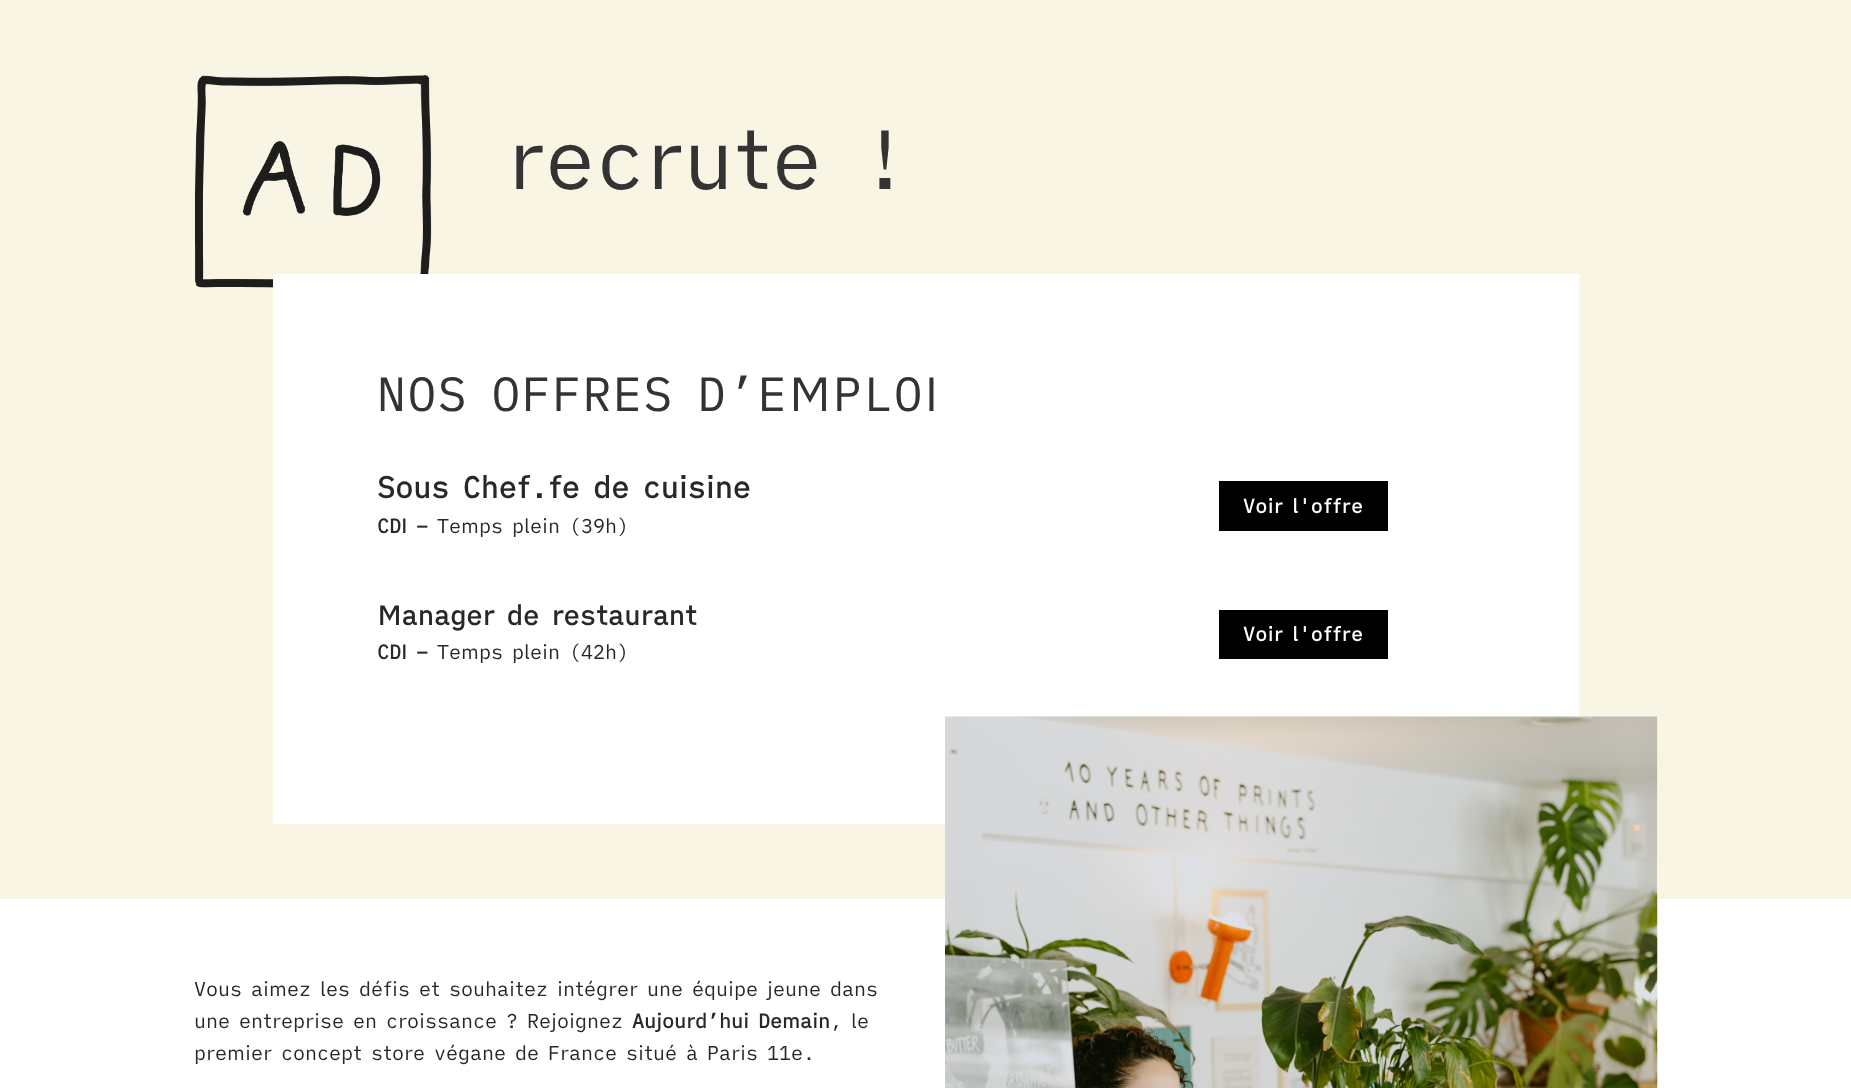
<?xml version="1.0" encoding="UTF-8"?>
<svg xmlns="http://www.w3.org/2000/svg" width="1851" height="1088">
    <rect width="100%" height="100%" fill="#FFFFFF"/>
    <rect x="0" y="0" width="1851" height="899" fill="#F9F5E5"/>
    <image x="195" y="75" width="237" height="213" href="img_01.png"/>
    <text x="507" y="189" font-family="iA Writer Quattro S" font-size="84" fill="#333333">recrute !</text>
    <rect x="273" y="274" width="1306" height="550" fill="#FFFFFF"/>
    <text x="377" y="411" font-family="iA Writer Quattro S" font-size="48" letter-spacing="1.6" fill="#333333">NOS OFFRES D’EMPLOI</text>
    <text x="377" y="498" font-family="iA Writer Quattro S" font-size="30" font-weight="700" fill="#282828">Sous Chef.fe de cuisine</text>
    <text x="377" y="533" font-family="iA Writer Quattro S" font-size="20" font-weight="700" fill="#282828">CDI –</text>
    <text x="437" y="533" font-family="iA Writer Quattro S" font-size="20" fill="#282828">Temps plein (39h)</text>
    <rect x="1219" y="481" width="169" height="50" fill="#000000"/>
    <text x="1243" y="513" font-family="iA Writer Quattro S" font-size="19.5" font-weight="700" letter-spacing="0.5" fill="#FFFFFF">Voir l'offre</text>
    <text x="377" y="625" font-family="iA Writer Quattro S" font-size="27" font-weight="700" fill="#282828">Manager de restaurant</text>
    <text x="377" y="659" font-family="iA Writer Quattro S" font-size="20" font-weight="700" fill="#282828">CDI –</text>
    <text x="437" y="659" font-family="iA Writer Quattro S" font-size="20" fill="#282828">Temps plein (42h)</text>
    <rect x="1219" y="610" width="169" height="49" fill="#000000"/>
    <text x="1243" y="641" font-family="iA Writer Quattro S" font-size="19.5" font-weight="700" letter-spacing="0.5" fill="#FFFFFF">Voir l'offre</text>
    <text font-family="iA Writer Quattro S" font-size="20" fill="#282828">
        <tspan x="194" y="996">Vous aimez les défis et souhaitez intégrer une équipe jeune dans</tspan>
        <tspan x="194" y="1028">une entreprise en croissance ? Rejoignez</tspan>
    </text>
    <text x="632" y="1028" font-family="iA Writer Quattro S" font-size="20" font-weight="700" fill="#282828">Aujourd’hui Demain</text>
    <text x="830" y="1028" font-family="iA Writer Quattro S" font-size="20" fill="#282828">, le</text>
    <text x="194" y="1060" font-family="iA Writer Quattro S" font-size="20" fill="#282828">premier concept store végane de France situé à Paris 11e.</text>
    <rect x="945" y="716" width="713" height="183" fill="#FFFFFF"/>
    <image x="945" y="716" width="713" height="372" href="img_02.png"/>
</svg>
